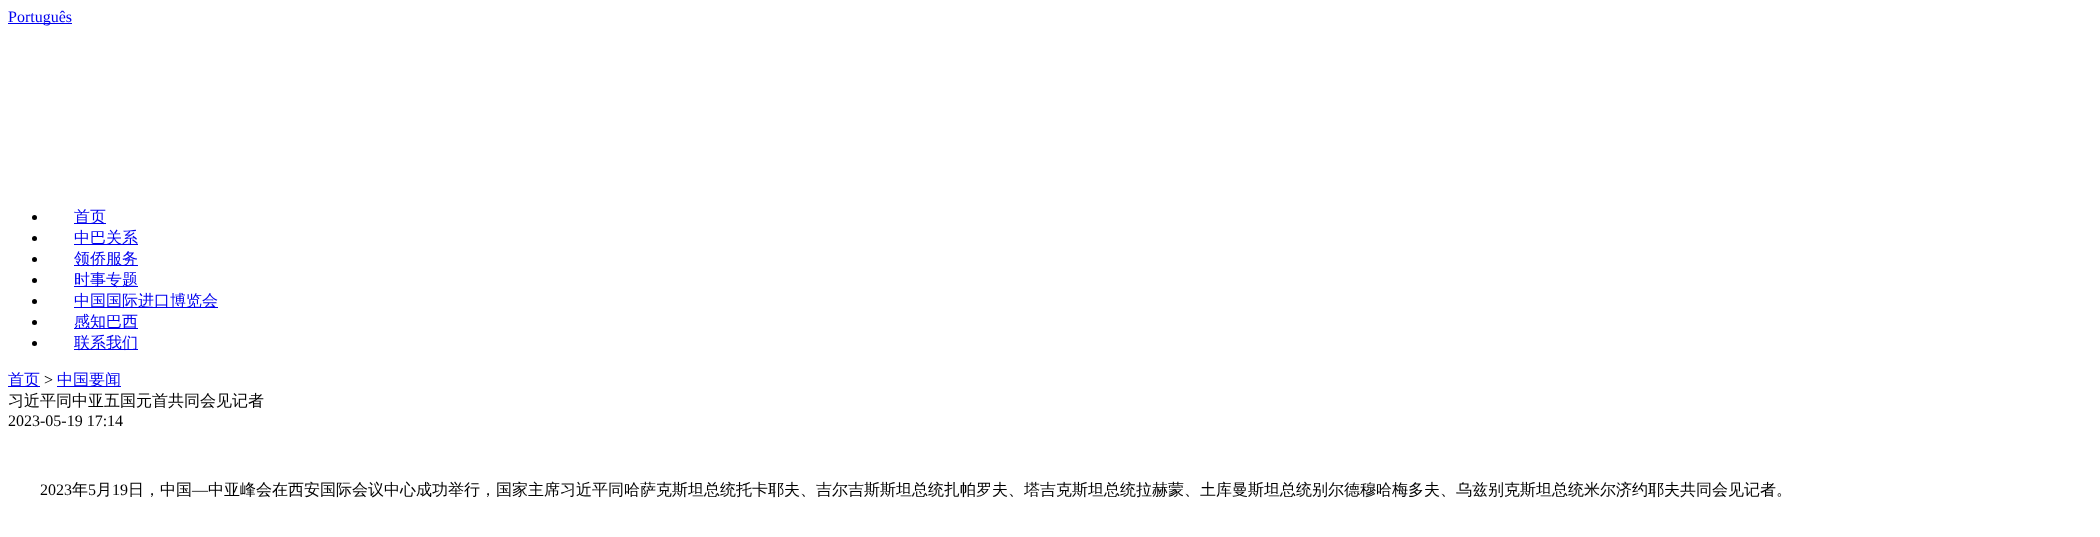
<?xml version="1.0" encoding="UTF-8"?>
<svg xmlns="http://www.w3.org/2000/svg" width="2100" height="537">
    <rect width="100%" height="100%" fill="#FFFFFF"/>
    <rect x="8" y="23" width="64" height="1" fill="#0000EE"/>
    <text x="8" y="22" font-family="Liberation Serif" font-size="16" fill="#0000EE">Português</text>
    <circle cx="34.5" cy="217.5" r="2.5" fill="#000000"/>
    <rect x="74" y="223" width="32" height="1" fill="#0000EE"/>
    <text x="74" y="222" font-family="WenQuanYi Zen Hei" font-size="16" font-weight="500" fill="#0000EE">首页</text>
    <circle cx="34.5" cy="238.5" r="2.5" fill="#000000"/>
    <rect x="74" y="244" width="64" height="1" fill="#0000EE"/>
    <text x="74" y="243" font-family="WenQuanYi Zen Hei" font-size="16" font-weight="500" fill="#0000EE">中巴关系</text>
    <circle cx="34.5" cy="259.5" r="2.5" fill="#000000"/>
    <rect x="74" y="265" width="64" height="1" fill="#0000EE"/>
    <text x="74" y="264" font-family="WenQuanYi Zen Hei" font-size="16" font-weight="500" fill="#0000EE">领侨服务</text>
    <circle cx="34.5" cy="280.5" r="2.5" fill="#000000"/>
    <rect x="74" y="286" width="64" height="1" fill="#0000EE"/>
    <text x="74" y="285" font-family="WenQuanYi Zen Hei" font-size="16" font-weight="500" fill="#0000EE">时事专题</text>
    <circle cx="34.5" cy="301.5" r="2.5" fill="#000000"/>
    <rect x="74" y="307" width="144" height="1" fill="#0000EE"/>
    <text x="74" y="306" font-family="WenQuanYi Zen Hei" font-size="16" font-weight="500" fill="#0000EE">中国国际进口博览会</text>
    <circle cx="34.5" cy="322.5" r="2.5" fill="#000000"/>
    <rect x="74" y="328" width="64" height="1" fill="#0000EE"/>
    <text x="74" y="327" font-family="WenQuanYi Zen Hei" font-size="16" font-weight="500" fill="#0000EE">感知巴西</text>
    <circle cx="34.5" cy="343.5" r="2.5" fill="#000000"/>
    <rect x="74" y="349" width="64" height="1" fill="#0000EE"/>
    <text x="74" y="348" font-family="WenQuanYi Zen Hei" font-size="16" font-weight="500" fill="#0000EE">联系我们</text>
    <rect x="8" y="386" width="32" height="1" fill="#0000EE"/>
    <text x="8" y="385" font-family="WenQuanYi Zen Hei" font-size="16" font-weight="500" fill="#0000EE">首页</text>
    <text x="44" y="385" font-family="Liberation Serif" font-size="16" fill="#000000">&gt;</text>
    <rect x="57" y="386" width="64" height="1" fill="#0000EE"/>
    <text x="57" y="385" font-family="WenQuanYi Zen Hei" font-size="16" font-weight="500" fill="#0000EE">中国要闻</text>
    <text x="8" y="406" font-family="WenQuanYi Zen Hei" font-size="16" font-weight="500" fill="#000000">习近平同中亚五国元首共同会见记者</text>
    <text x="8" y="426" font-family="Liberation Serif" font-size="16" fill="#000000">2023-05-19 17:14</text>
    <text x="40" y="495" font-family="Liberation Serif" font-size="16" fill="#000000">2023</text>
    <text x="72" y="495" font-family="WenQuanYi Zen Hei" font-size="16" font-weight="500" fill="#000000">年</text>
    <text x="88" y="495" font-family="Liberation Serif" font-size="16" fill="#000000">5</text>
    <text x="96" y="495" font-family="WenQuanYi Zen Hei" font-size="16" font-weight="500" fill="#000000">月</text>
    <text x="112" y="495" font-family="Liberation Serif" font-size="16" fill="#000000">19</text>
    <text x="128" y="495" font-family="WenQuanYi Zen Hei" font-size="16" font-weight="500" fill="#000000">日，中国</text>
    <text x="192" y="495" font-family="Liberation Serif" font-size="16" fill="#000000">—</text>
    <text x="208" y="495" font-family="WenQuanYi Zen Hei" font-size="16" font-weight="500" fill="#000000">中亚峰会在西安国际会议中心成功举行，国家主席习近平同哈萨克斯坦总统托卡耶夫、吉尔吉斯斯坦总统扎帕罗夫、塔吉克斯坦总统拉赫蒙、土库曼斯坦总统别尔德穆哈梅多夫、乌兹别克斯坦总统米尔济约耶夫共同会见记者。</text>
</svg>
